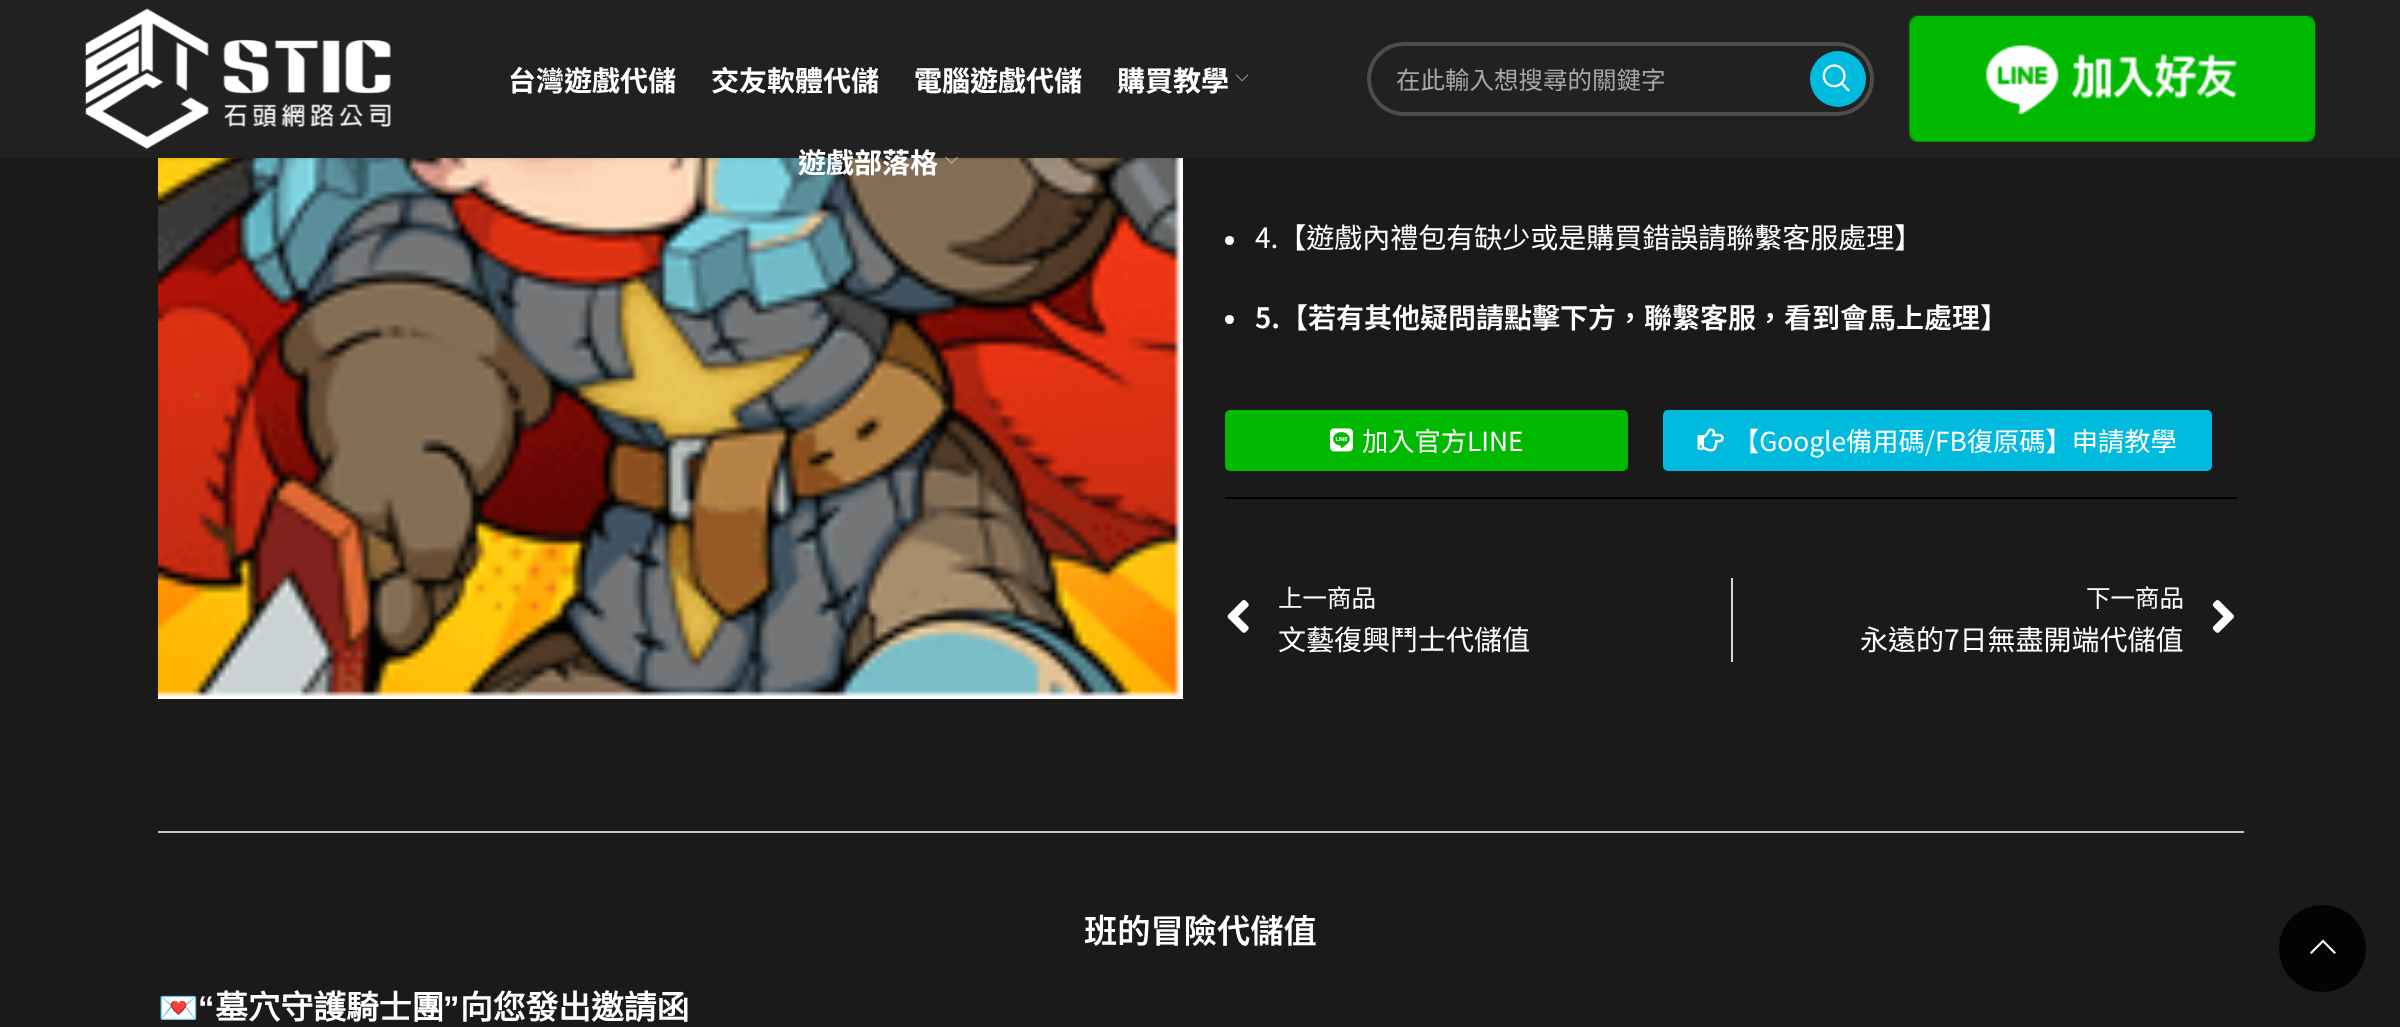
<?xml version="1.0" encoding="UTF-8"?>
<svg xmlns="http://www.w3.org/2000/svg" width="2400" height="1027">
    <defs>
        <filter id="blur1" x="-50%" y="-200%" width="200%" height="500%"><feGaussianBlur stdDeviation="2.5"/></filter>
    </defs>
    <rect width="100%" height="100%" fill="#1A1A1A"/>
    <image x="158" y="158" width="1025" height="541" href="img_06.png"/>
    <rect x="0" y="2" width="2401" height="157" fill="#000000" fill-opacity="0.1" filter="url(#blur1)"/>
    <rect x="0" y="0" width="2400" height="158" fill="#212121"/>
    <image x="85" y="8" width="306" height="141" href="img_01.png"/>
    <text x="508" y="91" font-family="Noto Sans TC" font-size="28" font-weight="700" fill="#FFFFFF">台灣遊戲代儲</text>
    <text x="711" y="91" font-family="Noto Sans TC" font-size="28" font-weight="700" fill="#FFFFFF">交友軟體代儲</text>
    <text x="914" y="91" font-family="Noto Sans TC" font-size="28" font-weight="700" fill="#FFFFFF">電腦遊戲代儲</text>
    <text x="1117" y="91" font-family="Noto Sans TC" font-size="28" font-weight="700" fill="#FFFFFF">購買教學</text>
    <image x="1235" y="74" width="14" height="8" href="img_02.png"/>
    <text x="798" y="173" font-family="Noto Sans TC" font-size="28" font-weight="700" fill="#FFFFFF">遊戲部落格</text>
    <image x="945" y="156" width="13" height="8" href="img_03.png"/>
    <rect x="1369" y="44" width="503" height="70" rx="35" fill="none" stroke="#4D4D4D" stroke-width="4"/>
    <text x="1396" y="89" font-family="Noto Sans TC" font-size="24.5" fill="#A6A6A6">在此輸入想搜尋的關鍵字</text>
    <circle cx="1838" cy="79" r="28" fill="#00BBDE"/>
    <image x="1822" y="64" width="28" height="28" href="img_04.png"/>
    <image x="1908" y="15" width="408" height="127" href="img_05.png"/>
    <circle cx="1229.5" cy="240.5" r="4.5" fill="#FFFFFF"/>
    <text x="1255" y="248" font-family="Noto Sans TC" font-size="28" fill="#FFFFFF">4.【遊戲內禮包有缺少或是購買錯誤請聯繫客服處理】</text>
    <circle cx="1229.5" cy="319.5" r="4.5" fill="#FFFFFF"/>
    <text x="1255" y="328" font-family="Noto Sans TC" font-size="28" font-weight="600" fill="#FFFFFF">5.【若有其他疑問請點擊下方，聯繫客服，看到會馬上處理】</text>
    <rect x="1225" y="410" width="403" height="61" rx="5" fill="#00B900"/>
    <image x="1330" y="428" width="23" height="24" href="img_07.png"/>
    <text x="1362" y="451" font-family="Noto Sans TC" font-size="26.25" fill="#FFFFFF">加入官方LINE</text>
    <rect x="1663" y="410" width="549" height="61" rx="5" fill="#00BBDE"/>
    <image x="1697" y="428" width="27" height="24" href="img_08.png"/>
    <text x="1733" y="451" font-family="Noto Sans TC" font-size="26.25" fill="#FFFFFF">【Google備用碼/FB復原碼】申請教學</text>
    <rect x="1225" y="497" width="1012" height="2" fill="#000000"/>
    <image x="1227" y="600" width="22" height="33" href="img_09.png"/>
    <text x="1278" y="607" font-family="Noto Sans TC" font-size="24.5" fill="#FFFFFF">上一商品</text>
    <text x="1278" y="650" font-family="Noto Sans TC" font-size="28" fill="#FFFFFF">文藝復興鬥士代儲值</text>
    <rect x="1731" y="578" width="2" height="84" fill="#D5D8DC"/>
    <text x="2086" y="607" font-family="Noto Sans TC" font-size="24.5" fill="#FFFFFF">下一商品</text>
    <text x="1860" y="650" font-family="Noto Sans TC" font-size="28" fill="#FFFFFF">永遠的7日無盡開端代儲值</text>
    <image x="2212" y="600" width="22" height="33" href="img_10.png"/>
    <rect x="158" y="831" width="2086" height="2" fill="#C6C6C6"/>
    <text x="1084" y="943" font-family="Noto Sans TC" font-size="33.25" font-weight="600" fill="#FFFFFF">班的冒險代儲值</text>
    <text x="158" y="1019" font-family="Noto Color Emoji" font-size="32.75" font-weight="700" fill="#FFFFFF">💌</text>
    <text x="198" y="1019" font-family="Liberation Sans" font-size="32.75" font-weight="700" fill="#FFFFFF">“</text>
    <text x="215" y="1019" font-family="Noto Sans CJK TC" font-size="32.75" font-weight="700" fill="#FFFFFF">墓穴守護騎士團</text>
    <text x="443" y="1019" font-family="Liberation Sans" font-size="32.75" font-weight="700" fill="#FFFFFF">”</text>
    <text x="460" y="1019" font-family="Noto Sans CJK TC" font-size="32.75" font-weight="700" fill="#FFFFFF">向您發出邀請函</text>
    <circle cx="2322.5" cy="948.5" r="43.5" fill="#030303"/>
    <path d="M 2334.5 954 L 2336 952.5 L 2323 939.5 L 2310 952.5 L 2311.5 954 L 2323 942.5 Z" fill="#FFFFFF"/>
</svg>
